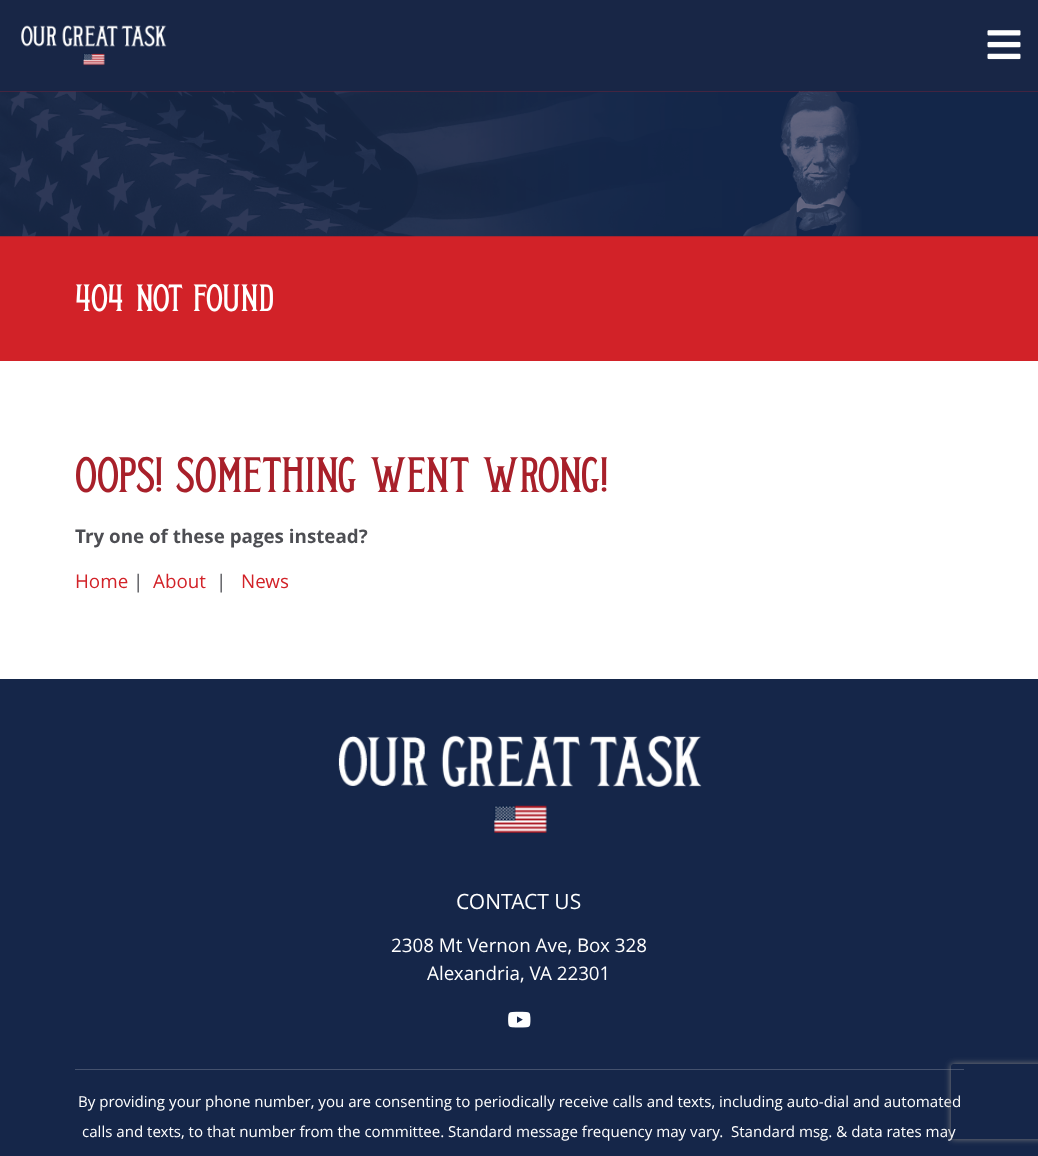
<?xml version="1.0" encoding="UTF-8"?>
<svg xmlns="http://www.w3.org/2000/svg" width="1038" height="1156">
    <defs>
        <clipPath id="clip1"><path d="M 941 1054 H 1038 V 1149 H 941 Z M 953.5 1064 H 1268.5 C 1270 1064 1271 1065 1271 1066.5 V 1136.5 C 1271 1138 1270 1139 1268.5 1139 H 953.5 C 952 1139 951 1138 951 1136.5 V 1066.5 C 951 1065 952 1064 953.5 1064 Z" clip-rule="evenodd"/></clipPath>
        <filter id="blur1" x="-50%" y="-200%" width="200%" height="500%"><feGaussianBlur stdDeviation="3"/></filter>
    </defs>
    <rect width="100%" height="100%" fill="#FFFFFF"/>
    <rect x="0" y="0" width="1038" height="91" fill="#182646"/>
    <image x="21" y="25" width="146" height="41" href="img_01.png"/>
    <image x="987" y="30" width="34" height="30" href="img_02.png"/>
    <rect x="0" y="91" width="1038" height="270" fill="#D22228"/>
    <image x="0" y="91" width="1038" height="146" href="img_03.png"/>
    <text x="75" y="311" font-family="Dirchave" font-size="38.5" fill="#FFFFFF">404 NOT FOUND</text>
    <text x="75" y="492" font-family="Dirchave" font-size="50.25" fill="#A8202A">Oops! Something went Wrong!</text>
    <text x="75" y="543" font-family="Open Sans" font-size="18.8" font-weight="700" fill="#4D4E53">Try one of these pages instead?</text>
    <text x="75" y="588" font-family="Open Sans" font-size="18.8" fill="#D22228">Home</text>
    <text x="133" y="588" font-family="Open Sans" font-size="18.8" fill="#4D4E53">|</text>
    <text x="153" y="588" font-family="Open Sans" font-size="18.8" fill="#D22228">About</text>
    <text x="216" y="588" font-family="Open Sans" font-size="18.8" fill="#4D4E53">|</text>
    <text x="241" y="588" font-family="Open Sans" font-size="18.8" fill="#D22228">News</text>
    <rect x="0" y="679" width="1038" height="477" fill="#152649"/>
    <rect x="75" y="1069" width="889" height="1" fill="#44516D"/>
    <image x="338" y="735" width="364" height="98" href="img_04.png"/>
    <text x="456" y="909" font-family="Open Sans" font-size="21" fill="#FFFFFF">CONTACT US</text>
    <text x="391" y="952" font-family="Open Sans" font-size="18.8" fill="#FFFFFF">2308 Mt Vernon Ave, Box 328</text>
    <text x="427" y="980" font-family="Open Sans" font-size="18.8" fill="#FFFFFF">Alexandria, VA 22301</text>
    <image x="508" y="1011" width="23" height="17" href="img_05.png"/>
    <text x="78" y="1107" font-family="Open Sans" font-size="15.08" fill="#FFFFFF">By providing your phone number, you are consenting to periodically receive calls and texts, including auto-dial and automated</text>
    <text x="82" y="1137" font-family="Open Sans" font-size="15.08" fill="#FFFFFF" xml:space="preserve">calls and texts, to that number from the committee. Standard message frequency may vary.  Standard msg. &amp; data rates may</text>
    <g clip-path="url(#clip1)">
        <rect x="951" y="1064" width="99" height="75" rx="2.5" fill="#808080" filter="url(#blur1)"/>
    </g>
</svg>
